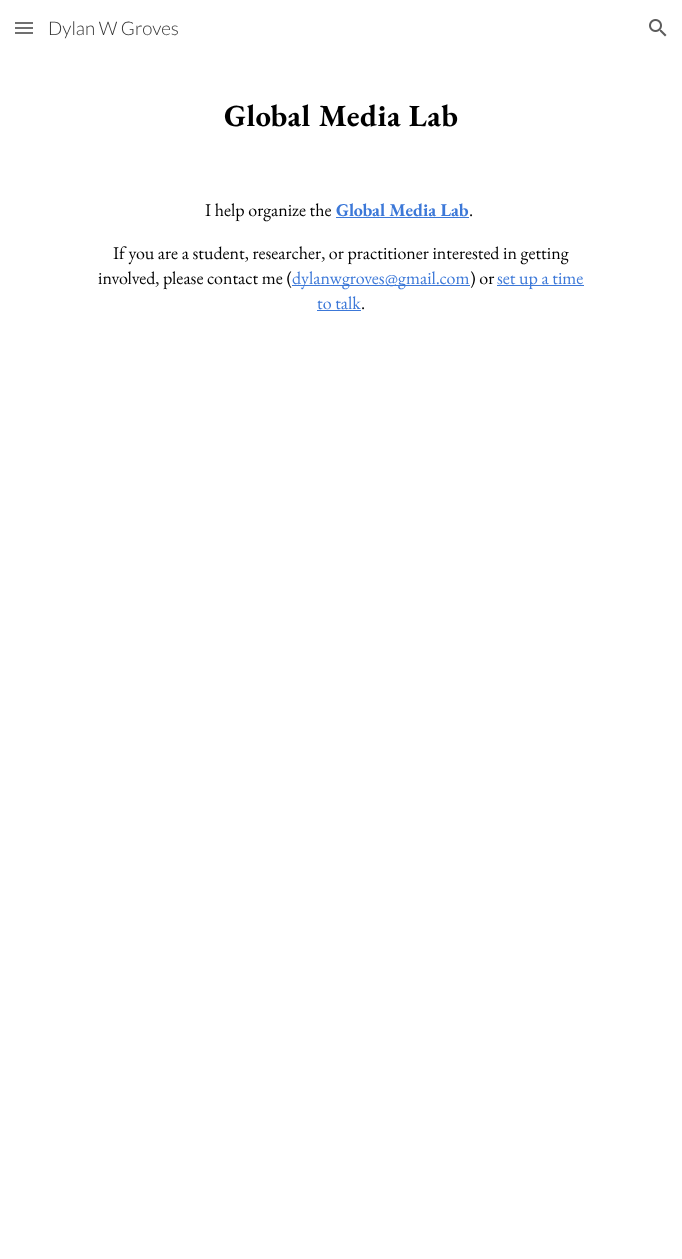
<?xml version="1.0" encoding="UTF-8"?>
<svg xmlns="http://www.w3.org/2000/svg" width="682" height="1259">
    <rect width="100%" height="100%" fill="#FFFFFF"/>
    <rect x="15" y="22" width="18" height="2" fill="#707070"/>
    <rect x="15" y="27" width="18" height="2" fill="#707070"/>
    <rect x="15" y="32" width="18" height="2" fill="#707070"/>
    <text x="48" y="35" font-family="Lato" font-size="18.75" font-weight="300" fill="#333333">Dylan W Groves</text>
    <image x="649" y="19" width="18" height="18" href="img_01.png"/>
    <text x="224" y="126" font-family="EB Garamond" font-size="30.75" font-weight="700" letter-spacing="0.5" fill="#000000">Global Media Lab</text>
    <text x="205" y="216" font-family="EB Garamond" font-size="18" fill="#000000">I help organize the</text>
    <text x="336" y="216" font-family="EB Garamond" font-size="18" font-weight="700" fill="#3C78D8">Global Media Lab</text>
    <rect x="336" y="217" width="133" height="1" fill="#3C78D8"/>
    <text x="469" y="216" font-family="EB Garamond" font-size="18" fill="#000000">.</text>
    <text x="113" y="259" font-family="EB Garamond" font-size="18" fill="#000000">If you are a student, researcher, or practitioner interested in getting</text>
    <text x="98" y="284" font-family="EB Garamond" font-size="18" fill="#000000">involved, please contact me (</text>
    <rect x="292" y="285" width="178" height="1" fill="#3C78D8"/>
    <text x="292" y="284" font-family="EB Garamond" font-size="18" fill="#3C78D8">dylanwgroves@gmail.com</text>
    <text x="470" y="284" font-family="EB Garamond" font-size="18" fill="#000000">) or</text>
    <rect x="497" y="285" width="87" height="1" fill="#3C78D8"/>
    <text x="497" y="284" font-family="EB Garamond" font-size="18" fill="#3C78D8">set up a time</text>
    <text x="317" y="309" font-family="EB Garamond" font-size="18" fill="#3C78D8">to talk</text>
    <rect x="317" y="310" width="44" height="1" fill="#3C78D8"/>
    <text x="361" y="309" font-family="EB Garamond" font-size="18" fill="#000000">.</text>
</svg>
